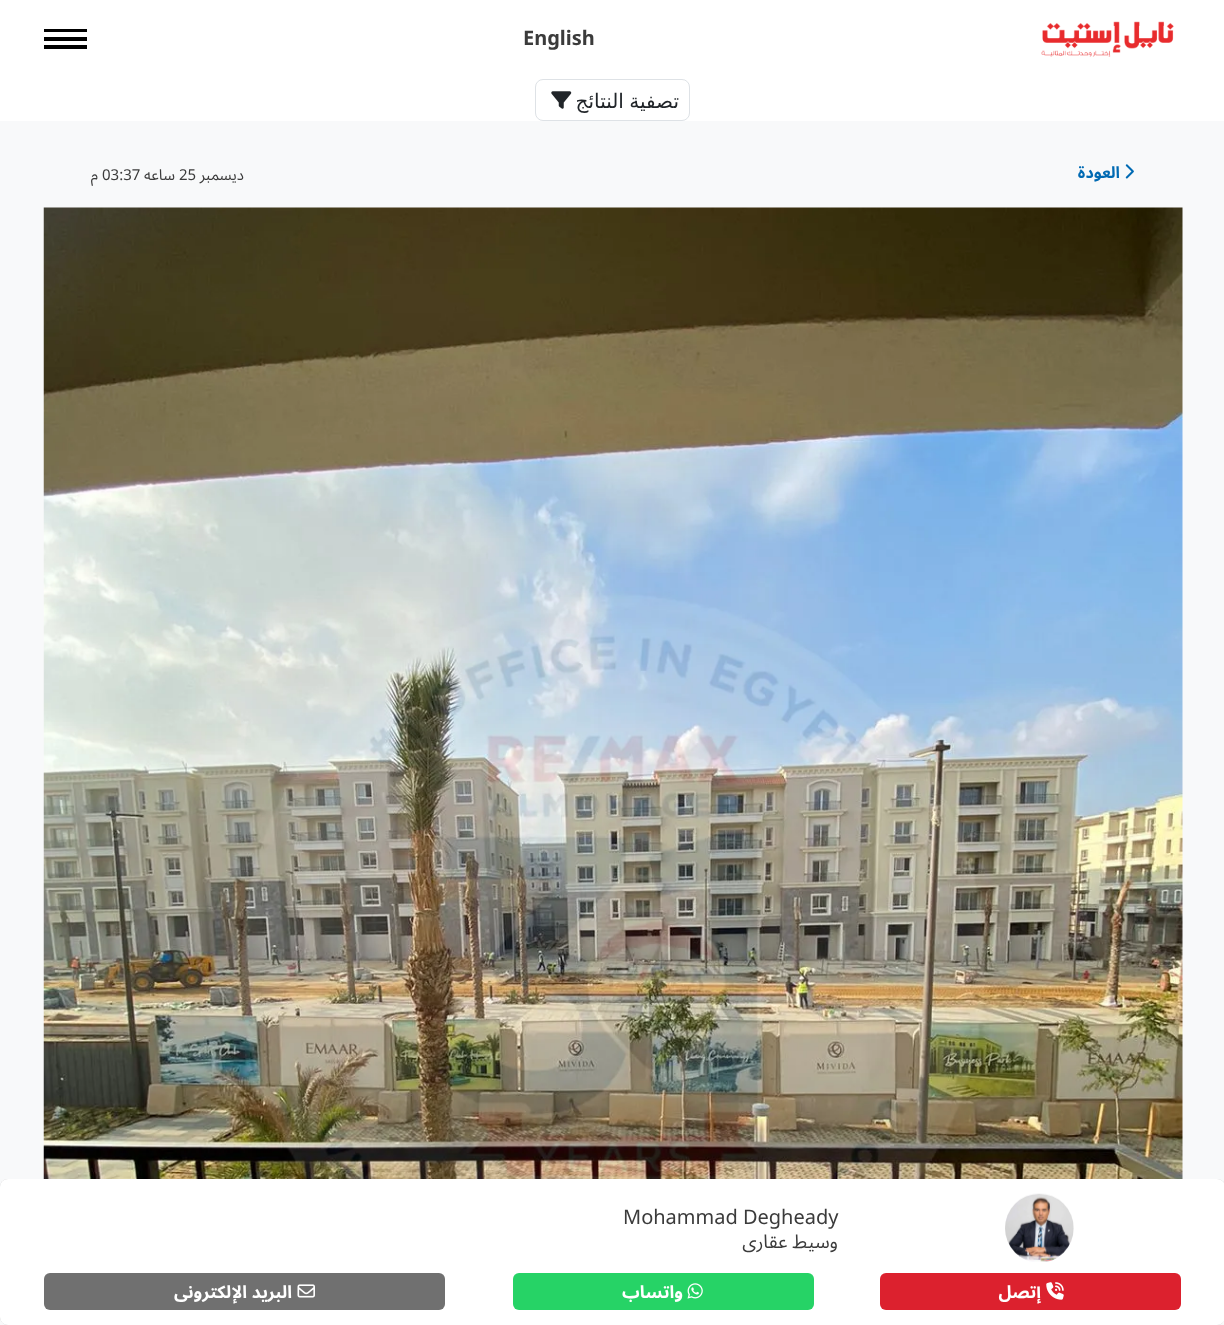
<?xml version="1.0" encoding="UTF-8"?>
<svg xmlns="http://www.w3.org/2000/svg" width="1224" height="1325">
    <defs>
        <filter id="blur1" x="-50%" y="-200%" width="200%" height="500%"><feGaussianBlur stdDeviation="0.5"/></filter>
    </defs>
    <rect width="100%" height="100%" fill="#FFFFFF"/>
    <image x="1041" y="21" width="133" height="36" href="img_01.png"/>
    <text x="523" y="45" font-family="Noto Sans" font-size="20" font-weight="700" fill="#3B3B3B">English</text>
    <rect x="44" y="29" width="43" height="3" fill="#000000"/>
    <rect x="44" y="37" width="43" height="4" fill="#000000"/>
    <rect x="44" y="45" width="43" height="4" fill="#000000"/>
    <rect x="535.5" y="79.5" width="154" height="41" rx="7.5" fill="none" stroke="#DEE2E6"/>
    <text x="679" y="108" word-spacing="-1" font-family="DejaVu Sans" font-size="20" direction="rtl" fill="#212529">تصفية النتائج</text>
    <image x="551" y="91" width="21" height="18" href="img_02.png"/>
    <rect x="0" y="121" width="1224" height="1204" fill="#F8F9FA"/>
    <image x="1125" y="164" width="9" height="15" href="img_03.png"/>
    <text x="1120" y="178" font-family="Noto Sans Arabic" font-size="16" font-weight="700" direction="rtl" fill="#006AB3">العودة</text>
    <text x="244" y="180" font-family="Noto Sans Arabic" font-size="15" direction="rtl" fill="#3B3B3B">ديسمبر</text>
    <text x="179" y="180" font-family="Noto Sans" font-size="15" fill="#3B3B3B">25</text>
    <text x="175" y="180" font-family="Noto Sans Arabic" font-size="15" direction="rtl" fill="#3B3B3B">ساعه</text>
    <text x="102" y="180" font-family="Noto Sans" font-size="15" fill="#3B3B3B">03:37</text>
    <text x="98" y="180" font-family="Noto Sans Arabic" font-size="15" direction="rtl" fill="#3B3B3B">م</text>
    <image x="43" y="207" width="1140" height="972" href="img_04.png"/>
    <rect x="0" y="1179" width="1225" height="146" rx="8" fill="#000000" fill-opacity="0.2" filter="url(#blur1)"/>
    <rect x="0" y="1179" width="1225" height="146" rx="8" fill="#FFFFFF"/>
    <image x="1005" y="1193" width="69" height="69" href="img_05.png"/>
    <text x="623" y="1224" font-family="Noto Sans" font-size="20" fill="#3B3B3B">Mohammad Degheady</text>
    <text x="838" y="1248" font-family="Noto Sans Arabic" font-size="18.75" direction="rtl" fill="#3B3B3B">وسيط عقارى</text>
    <rect x="880" y="1273" width="301" height="37" rx="6" fill="#DC212E"/>
    <image x="1046" y="1282" width="18" height="18" href="img_06.png"/>
    <text x="1041" y="1298" font-family="Noto Sans Arabic" font-size="17.5" font-weight="700" direction="rtl" fill="#FFFFFF">إتصل</text>
    <rect x="513" y="1273" width="301" height="37" rx="6" fill="#26D366"/>
    <image x="687" y="1283" width="16" height="16" href="img_07.png"/>
    <text x="683" y="1298" font-family="Noto Sans Arabic" font-size="17.5" font-weight="700" direction="rtl" fill="#FFFFFF">واتساب</text>
    <rect x="44" y="1273" width="401" height="37" rx="6" fill="#707070"/>
    <image x="297" y="1284" width="18" height="14" href="img_08.png"/>
    <text x="292" y="1298" font-family="Noto Sans Arabic" font-size="17.5" font-weight="700" direction="rtl" fill="#FFFFFF">البريد الإلكترونى</text>
</svg>
